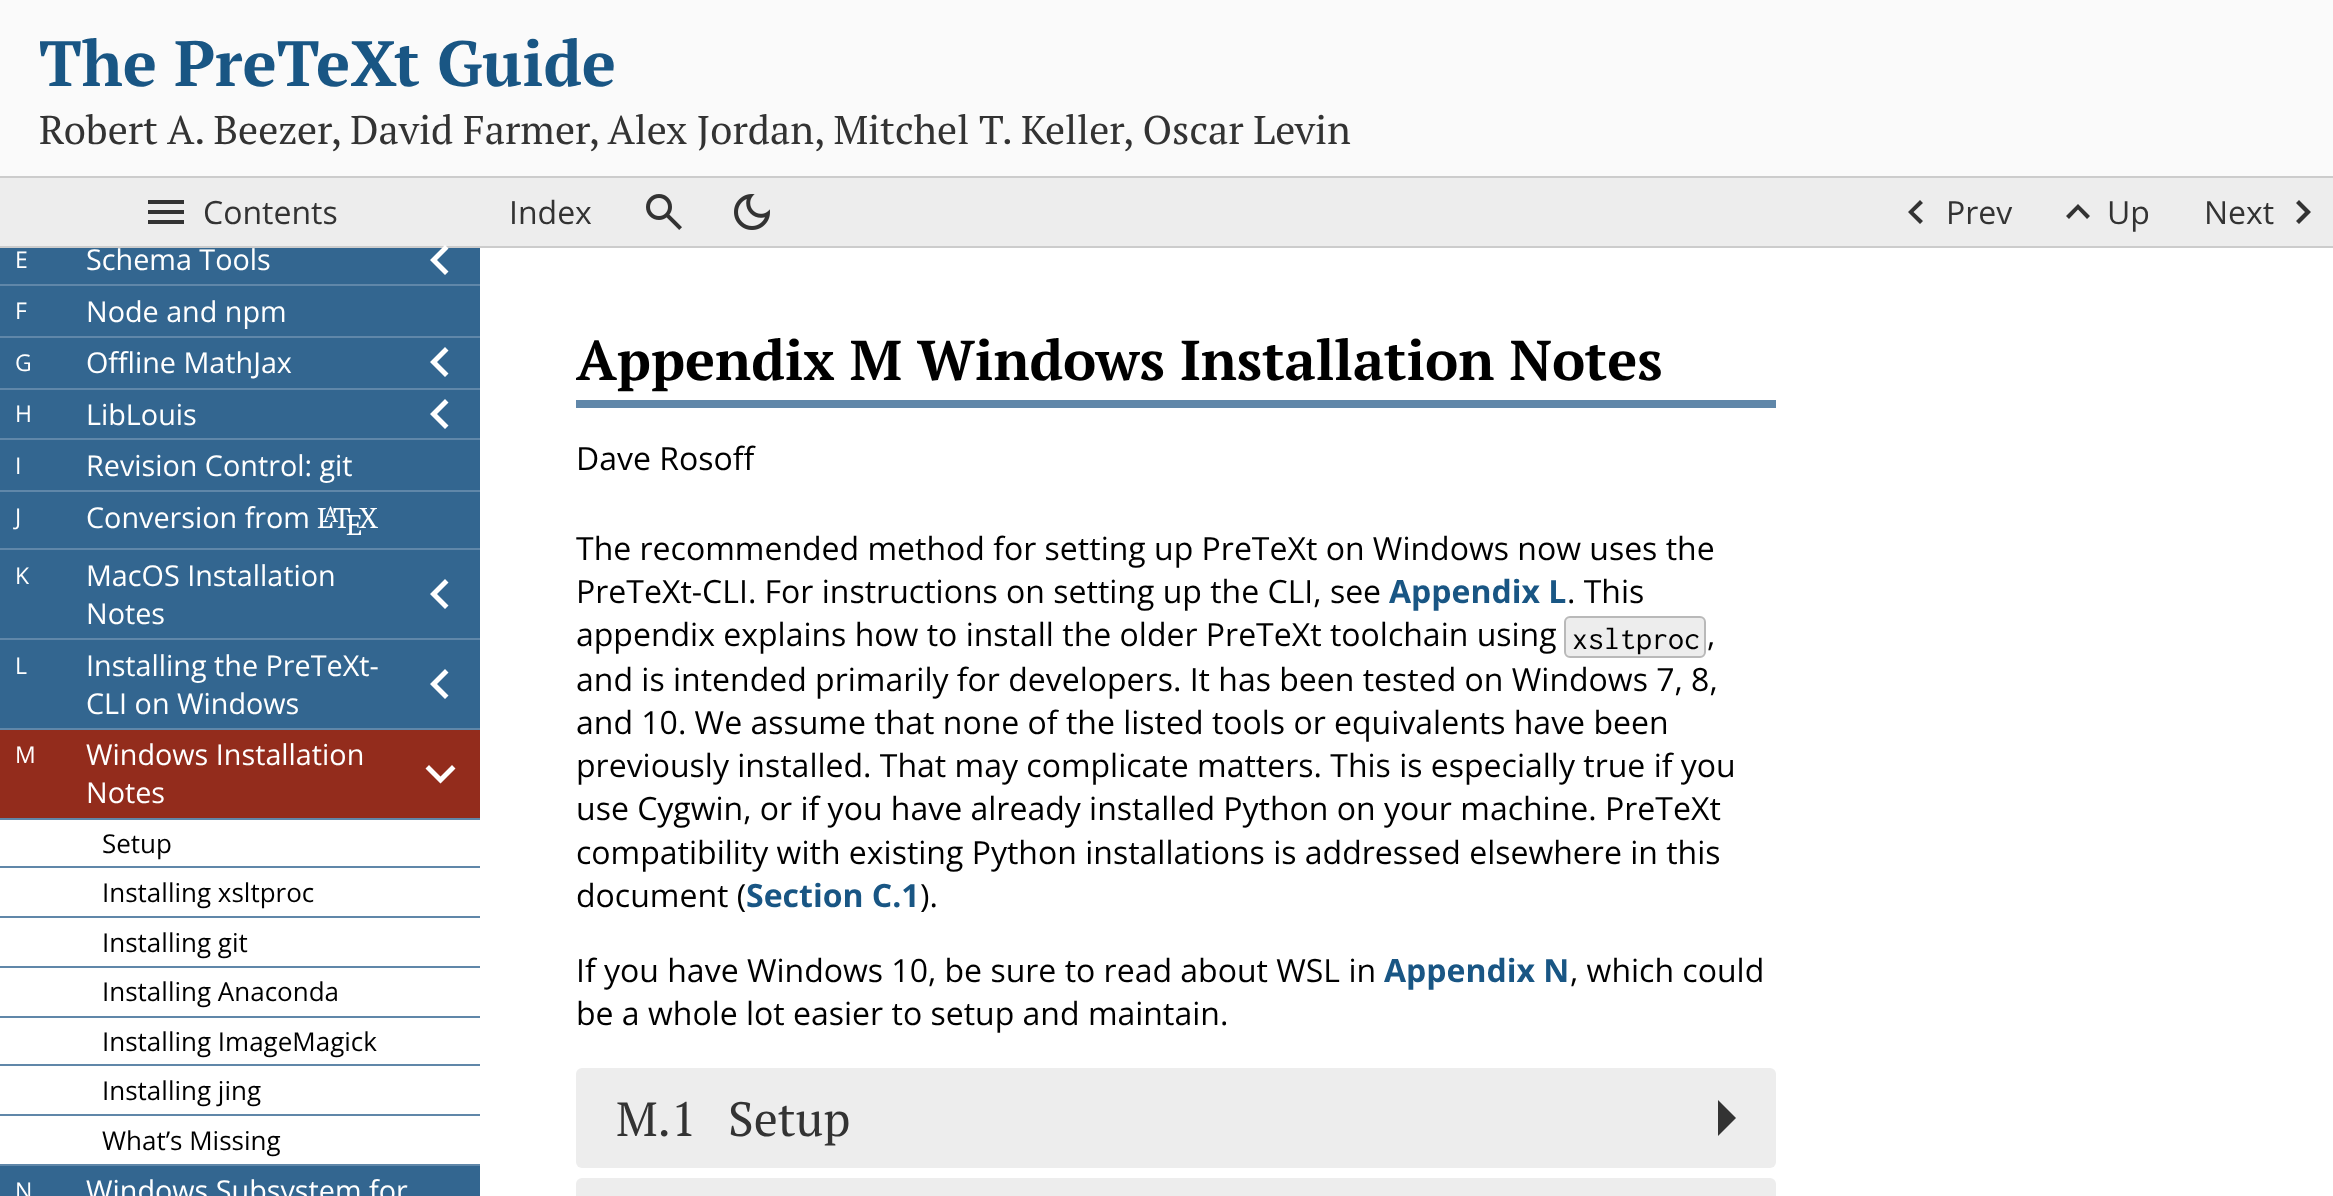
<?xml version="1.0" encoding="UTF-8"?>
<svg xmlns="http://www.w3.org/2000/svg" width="2333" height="1196">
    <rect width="100%" height="100%" fill="#FFFFFF"/>
    <rect x="0" y="0" width="2333" height="176" fill="#FAFAFA"/>
    <text x="39" y="86" font-family="PT Serif" font-size="64" font-weight="700" fill="#195684">The PreTeXt Guide</text>
    <text x="39" y="144" font-family="PT Serif" font-size="40" fill="#333333">Robert A. Beezer, David Farmer, Alex Jordan, Mitchel T. Keller, Oscar Levin</text>
    <rect x="0" y="178" width="2333" height="68" fill="#EDEDED"/>
    <rect x="0" y="176" width="2333" height="2" fill="#CCCCCC"/>
    <rect x="0" y="246" width="2333" height="2" fill="#CCCCCC"/>
    <path d="M 148 224 V 220 H 184 V 224 Z M 148 214 V 210 H 184 V 214 Z M 148 204 V 200 H 184 V 204 Z" fill="#333333"/>
    <text x="203" y="224" font-family="Open Sans" font-size="32" fill="#333333">Contents</text>
    <text x="509" y="224" font-family="Open Sans" font-size="32" fill="#333333">Index</text>
    <image x="646" y="194" width="36" height="36" href="img_01.png"/>
    <image x="734" y="194" width="36" height="36" href="img_02.png"/>
    <path d="M 1920 224 L 1908 212 L 1920 200 L 1923 203 L 1913.5 212 L 1923 221 Z" fill="#333333"/>
    <text x="1946" y="224" font-family="Open Sans" font-size="32" fill="#333333">Prev</text>
    <path d="M 2069 219 L 2066 216 L 2078 204 L 2090 216 L 2087 219 L 2078 209.5 Z" fill="#333333"/>
    <text x="2107" y="224" font-family="Open Sans" font-size="32" fill="#333333">Up</text>
    <text x="2204" y="224" font-family="Open Sans" font-size="32" fill="#333333">Next</text>
    <path d="M 2305 212 L 2296 203 L 2299 200 L 2311 212 L 2299 224 L 2296 221 Z" fill="#333333"/>
    <rect x="0" y="248" width="480" height="36" fill="#336690"/>
    <text x="15" y="268" font-family="Open Sans" font-size="23" fill="#FFFFFF">E</text>
    <text x="86" y="270" font-family="Open Sans" font-size="28.75" fill="#FFFFFF">Schema Tools</text>
    <path d="M 445 275 L 430 260 L 445 245 L 448.5 248.5 L 437 260 L 448.5 271.5 Z" fill="#FFFFFF"/>
    <rect x="0" y="286" width="480" height="50" fill="#336690"/>
    <rect x="0" y="284" width="480" height="2" fill="#6087A9"/>
    <text x="15" y="319" font-family="Open Sans" font-size="23" fill="#FFFFFF">F</text>
    <text x="86" y="322" font-family="Open Sans" font-size="28.75" fill="#FFFFFF">Node and npm</text>
    <rect x="0" y="338" width="480" height="50" fill="#336690"/>
    <rect x="0" y="336" width="480" height="2" fill="#6087A9"/>
    <text x="15" y="371" font-family="Open Sans" font-size="23" fill="#FFFFFF">G</text>
    <text x="86" y="373" font-family="Open Sans" font-size="28.75" fill="#FFFFFF">Offline MathJax</text>
    <path d="M 445 377 L 430 362 L 445 347 L 448.5 350.5 L 437 362 L 448.5 373.5 Z" fill="#FFFFFF"/>
    <rect x="0" y="390" width="480" height="48" fill="#336690"/>
    <rect x="0" y="388" width="480" height="2" fill="#6087A9"/>
    <text x="15" y="422" font-family="Open Sans" font-size="23" fill="#FFFFFF">H</text>
    <text x="86" y="425" font-family="Open Sans" font-size="28.75" fill="#FFFFFF">LibLouis</text>
    <path d="M 445 429 L 430 414 L 445 399 L 448.5 402.5 L 437 414 L 448.5 425.5 Z" fill="#FFFFFF"/>
    <rect x="0" y="440" width="480" height="50" fill="#336690"/>
    <rect x="0" y="438" width="480" height="2" fill="#6087A9"/>
    <text x="15" y="474" font-family="Open Sans" font-size="23" fill="#FFFFFF">I</text>
    <text x="86" y="476" font-family="Open Sans" font-size="28.75" fill="#FFFFFF">Revision Control: git</text>
    <rect x="0" y="492" width="480" height="56" fill="#336690"/>
    <rect x="0" y="490" width="480" height="2" fill="#6087A9"/>
    <text x="15" y="525" font-family="Open Sans" font-size="23" fill="#FFFFFF">J</text>
    <text x="86" y="528" font-family="Open Sans" font-size="28.75" fill="#FFFFFF">Conversion from</text>
    <text x="317" y="528" font-family="PT Serif" font-size="28.75" fill="#FFFFFF">L</text>
    <text x="323" y="522" font-family="PT Serif" font-size="22" fill="#FFFFFF">A</text>
    <text x="333" y="528" font-family="PT Serif" font-size="28.75" fill="#FFFFFF">T</text>
    <text x="346" y="535" font-family="PT Serif" font-size="28.75" fill="#FFFFFF">E</text>
    <text x="359" y="528" font-family="PT Serif" font-size="28.75" fill="#FFFFFF">X</text>
    <rect x="0" y="550" width="480" height="88" fill="#336690"/>
    <rect x="0" y="548" width="480" height="2" fill="#6087A9"/>
    <text x="15" y="584" font-family="Open Sans" font-size="23" fill="#FFFFFF">K</text>
    <text font-family="Open Sans" font-size="28.75" fill="#FFFFFF">
        <tspan x="86" y="586">MacOS Installation</tspan>
        <tspan x="86" y="624">Notes</tspan>
    </text>
    <path d="M 445 609 L 430 594 L 445 579 L 448.5 582.5 L 437 594 L 448.5 605.5 Z" fill="#FFFFFF"/>
    <rect x="0" y="640" width="480" height="88" fill="#336690"/>
    <rect x="0" y="638" width="480" height="2" fill="#6087A9"/>
    <text x="15" y="674" font-family="Open Sans" font-size="23" fill="#FFFFFF">L</text>
    <text font-family="Open Sans" font-size="28.75" fill="#FFFFFF">
        <tspan x="86" y="676">Installing the PreTeXt-</tspan>
        <tspan x="86" y="714">CLI on Windows</tspan>
    </text>
    <path d="M 445 699 L 430 684 L 445 669 L 448.5 672.5 L 437 684 L 448.5 695.5 Z" fill="#FFFFFF"/>
    <rect x="0" y="730" width="480" height="88" fill="#932C1C"/>
    <rect x="0" y="728" width="480" height="2" fill="#6087A9"/>
    <text x="15" y="763" font-family="Open Sans" font-size="23" fill="#FFFFFF">M</text>
    <text font-family="Open Sans" font-size="28.75" fill="#FFFFFF">
        <tspan x="86" y="765">Windows Installation</tspan>
        <tspan x="86" y="803">Notes</tspan>
    </text>
    <path d="M 455.5 768.5 L 440.5 783.5 L 425.5 768.5 L 429 765 L 440.5 776.5 L 452 765 Z" fill="#FFFFFF"/>
    <rect x="0" y="818" width="480" height="2" fill="#6087A9"/>
    <text x="102" y="853" font-family="Open Sans" font-size="26" fill="#000000">Setup</text>
    <rect x="0" y="866" width="480" height="2" fill="#6087A9"/>
    <text x="102" y="902" font-family="Open Sans" font-size="26" fill="#000000">Installing xsltproc</text>
    <rect x="0" y="916" width="480" height="2" fill="#6087A9"/>
    <text x="102" y="952" font-family="Open Sans" font-size="26" fill="#000000">Installing git</text>
    <rect x="0" y="966" width="480" height="2" fill="#6087A9"/>
    <text x="102" y="1001" font-family="Open Sans" font-size="26" fill="#000000">Installing Anaconda</text>
    <rect x="0" y="1016" width="480" height="2" fill="#6087A9"/>
    <text x="102" y="1051" font-family="Open Sans" font-size="26" fill="#000000">Installing ImageMagick</text>
    <rect x="0" y="1064" width="480" height="2" fill="#6087A9"/>
    <text x="102" y="1100" font-family="Open Sans" font-size="26" fill="#000000">Installing jing</text>
    <rect x="0" y="1114" width="480" height="2" fill="#6087A9"/>
    <text x="102" y="1150" font-family="Open Sans" font-size="26" fill="#000000">What’s Missing</text>
    <rect x="0" y="1166" width="480" height="30" fill="#336690"/>
    <rect x="0" y="1164" width="480" height="2" fill="#6087A9"/>
    <text x="15" y="1199" font-family="Open Sans" font-size="23" fill="#FFFFFF">N</text>
    <text x="86" y="1201" font-family="Open Sans" font-size="28.75" fill="#FFFFFF">Windows Subsystem for</text>
    <rect x="576" y="400" width="1200" height="8" fill="#6087A9"/>
    <text x="576" y="380" font-family="PT Serif" font-size="56" font-weight="700" fill="#000000">Appendix M Windows Installation Notes</text>
    <text x="576" y="470" font-family="Open Sans" font-size="32" fill="#000000">Dave Rosoff</text>
    <text font-family="Open Sans" font-size="32" fill="#000000">
        <tspan x="576" y="560">The recommended method for setting up PreTeXt on Windows now uses the</tspan>
        <tspan x="576" y="603">PreTeXt-CLI. For instructions on setting up the CLI, see</tspan>
    </text>
    <text x="1389" y="603" font-family="Open Sans" font-size="32" font-weight="700" fill="#195684">Appendix L</text>
    <text x="1567" y="603" font-family="Open Sans" font-size="32" fill="#000000">. This</text>
    <text x="576" y="646" font-family="Open Sans" font-size="32" fill="#000000">appendix explains how to install the older PreTeXt toolchain using</text>
    <rect x="1565" y="617" width="140" height="40" rx="5" fill="#EDEDED" stroke="#B9B9B9" stroke-width="2"/>
    <text x="1572" y="649" font-family="Inconsolata" font-size="32" fill="#000000">xsltproc</text>
    <text x="1707" y="646" font-family="Open Sans" font-size="32" fill="#000000">,</text>
    <text font-family="Open Sans" font-size="32" fill="#000000">
        <tspan x="576" y="691">and is intended primarily for developers. It has been tested on Windows 7, 8,</tspan>
        <tspan x="576" y="734">and 10. We assume that none of the listed tools or equivalents have been</tspan>
        <tspan x="576" y="777">previously installed. That may complicate matters. This is especially true if you</tspan>
        <tspan x="576" y="820">use Cygwin, or if you have already installed Python on your machine. PreTeXt</tspan>
        <tspan x="576" y="864">compatibility with existing Python installations is addressed elsewhere in this</tspan>
        <tspan x="576" y="907">document (</tspan>
    </text>
    <text x="746" y="907" font-family="Open Sans" font-size="32" font-weight="700" fill="#195684">Section C.1</text>
    <text x="920" y="907" font-family="Open Sans" font-size="32" fill="#000000">).</text>
    <text x="576" y="982" font-family="Open Sans" font-size="32" fill="#000000">If you have Windows 10, be sure to read about WSL in</text>
    <text x="1384" y="982" font-family="Open Sans" font-size="32" font-weight="700" fill="#195684">Appendix N</text>
    <text x="1570" y="982" font-family="Open Sans" font-size="32" fill="#000000">, which could</text>
    <text x="576" y="1025" font-family="Open Sans" font-size="32" fill="#000000">be a whole lot easier to setup and maintain.</text>
    <rect x="576" y="1068" width="1200" height="100" rx="6" fill="#EDEDED"/>
    <text x="616" y="1136" font-family="PT Serif" font-size="48" fill="#333333">M.1</text>
    <text x="728" y="1136" font-family="PT Serif" font-size="48" fill="#333333">Setup</text>
    <path d="M 1718 1136 V 1100 L 1736 1118 Z" fill="#333333"/>
    <rect x="576" y="1178" width="1200" height="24" rx="6" fill="#EDEDED"/>
</svg>
